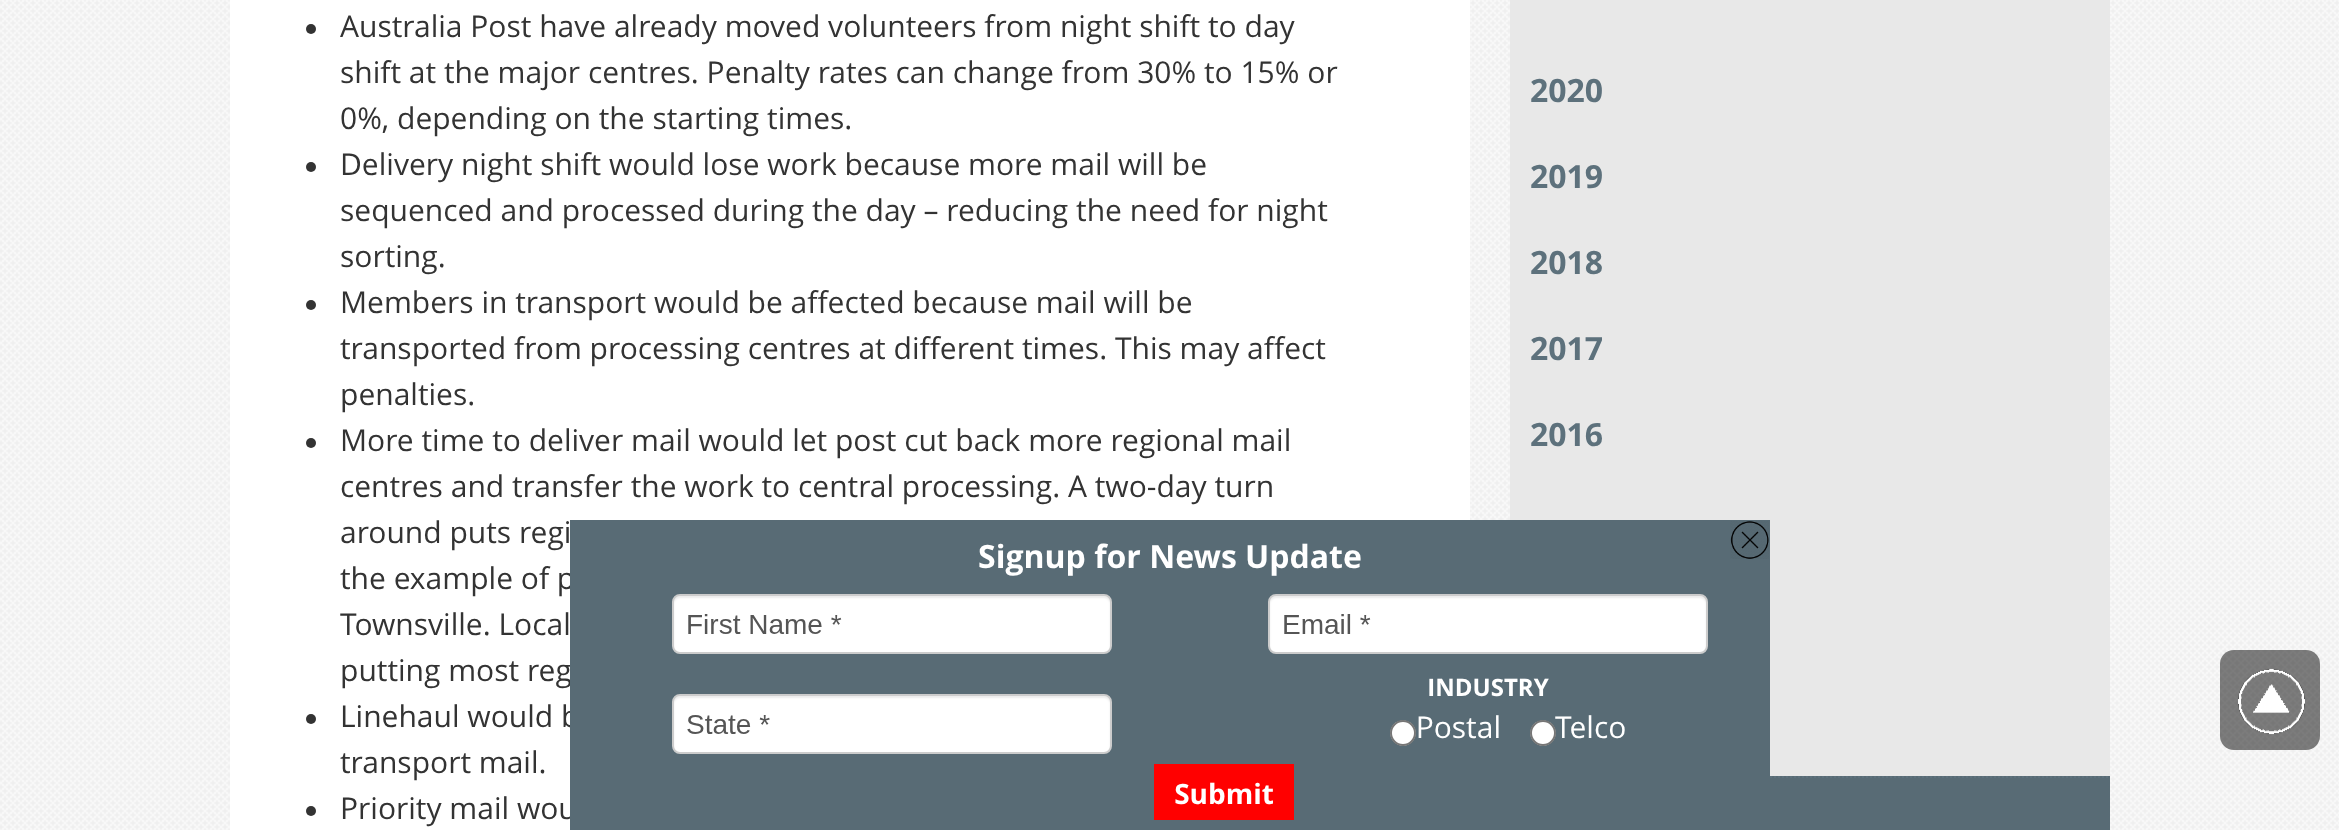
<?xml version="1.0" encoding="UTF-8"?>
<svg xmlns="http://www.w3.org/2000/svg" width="2339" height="830">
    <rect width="100%" height="100%" fill="#FFFFFF"/>
    <image x="0" y="0" width="2339" height="830" href="img_01.png"/>
    <rect x="230" y="0" width="1240" height="830" fill="#FFFFFF"/>
    <circle cx="311" cy="29" r="5" fill="#333333"/>
    <text font-family="Open Sans" font-size="30" fill="#333333">
        <tspan x="340" y="37">Australia Post have already moved volunteers from night shift to day</tspan>
        <tspan x="340" y="83">shift at the major centres. Penalty rates can change from 30% to 15% or</tspan>
        <tspan x="340" y="129">0%, depending on the starting times.</tspan>
    </text>
    <circle cx="311" cy="167" r="5" fill="#333333"/>
    <text font-family="Open Sans" font-size="30" fill="#333333">
        <tspan x="340" y="175">Delivery night shift would lose work because more mail will be</tspan>
        <tspan x="340" y="221">sequenced and processed during the day – reducing the need for night</tspan>
        <tspan x="340" y="267">sorting.</tspan>
    </text>
    <circle cx="311" cy="305" r="5" fill="#333333"/>
    <text font-family="Open Sans" font-size="30" fill="#333333">
        <tspan x="340" y="313">Members in transport would be affected because mail will be</tspan>
        <tspan x="340" y="359">transported from processing centres at different times. This may affect</tspan>
        <tspan x="340" y="405">penalties.</tspan>
    </text>
    <circle cx="311" cy="443" r="5" fill="#333333"/>
    <text font-family="Open Sans" font-size="30" fill="#333333">
        <tspan x="340" y="451">More time to deliver mail would let post cut back more regional mail</tspan>
        <tspan x="340" y="497">centres and transfer the work to central processing. A two-day turn</tspan>
        <tspan x="340" y="543">around puts regi</tspan>
        <tspan x="340" y="589">the example of p</tspan>
        <tspan x="340" y="635">Townsville. Local</tspan>
        <tspan x="340" y="681">putting most reg</tspan>
    </text>
    <circle cx="311" cy="719" r="5" fill="#333333"/>
    <text font-family="Open Sans" font-size="30" fill="#333333">
        <tspan x="340" y="727">Linehaul would b</tspan>
        <tspan x="340" y="773">transport mail.</tspan>
    </text>
    <circle cx="311" cy="811" r="5" fill="#333333"/>
    <text x="340" y="819" font-family="Open Sans" font-size="30" fill="#333333">Priority mail wou</text>
    <rect x="1510" y="0" width="600" height="776" fill="#E8E8E8"/>
    <text x="1530" y="102" font-family="Open Sans" font-size="32" font-weight="700" fill="#5D717C">2020</text>
    <text x="1530" y="188" font-family="Open Sans" font-size="32" font-weight="700" fill="#5D717C">2019</text>
    <text x="1530" y="274" font-family="Open Sans" font-size="32" font-weight="700" fill="#5D717C">2018</text>
    <text x="1530" y="360" font-family="Open Sans" font-size="32" font-weight="700" fill="#5D717C">2017</text>
    <text x="1530" y="446" font-family="Open Sans" font-size="32" font-weight="700" fill="#5D717C">2016</text>
    <rect x="1770" y="776" width="340" height="54" fill="#586B75"/>
    <path d="M 1510 777 H 2110" fill="none" stroke="#5D717C" stroke-width="2" stroke-dasharray="2 2"/>
    <rect x="570" y="520" width="1200" height="310" fill="#586B75"/>
    <image x="672" y="543" width="1036" height="277" href="img_02.png"/>
    <image x="1730" y="521" width="39" height="38" href="img_03.png"/>
    <rect x="2220" y="650" width="100" height="100" rx="14" fill="#000000" fill-opacity="0.5"/>
    <image x="2238" y="668" width="67" height="67" href="img_04.png"/>
</svg>
